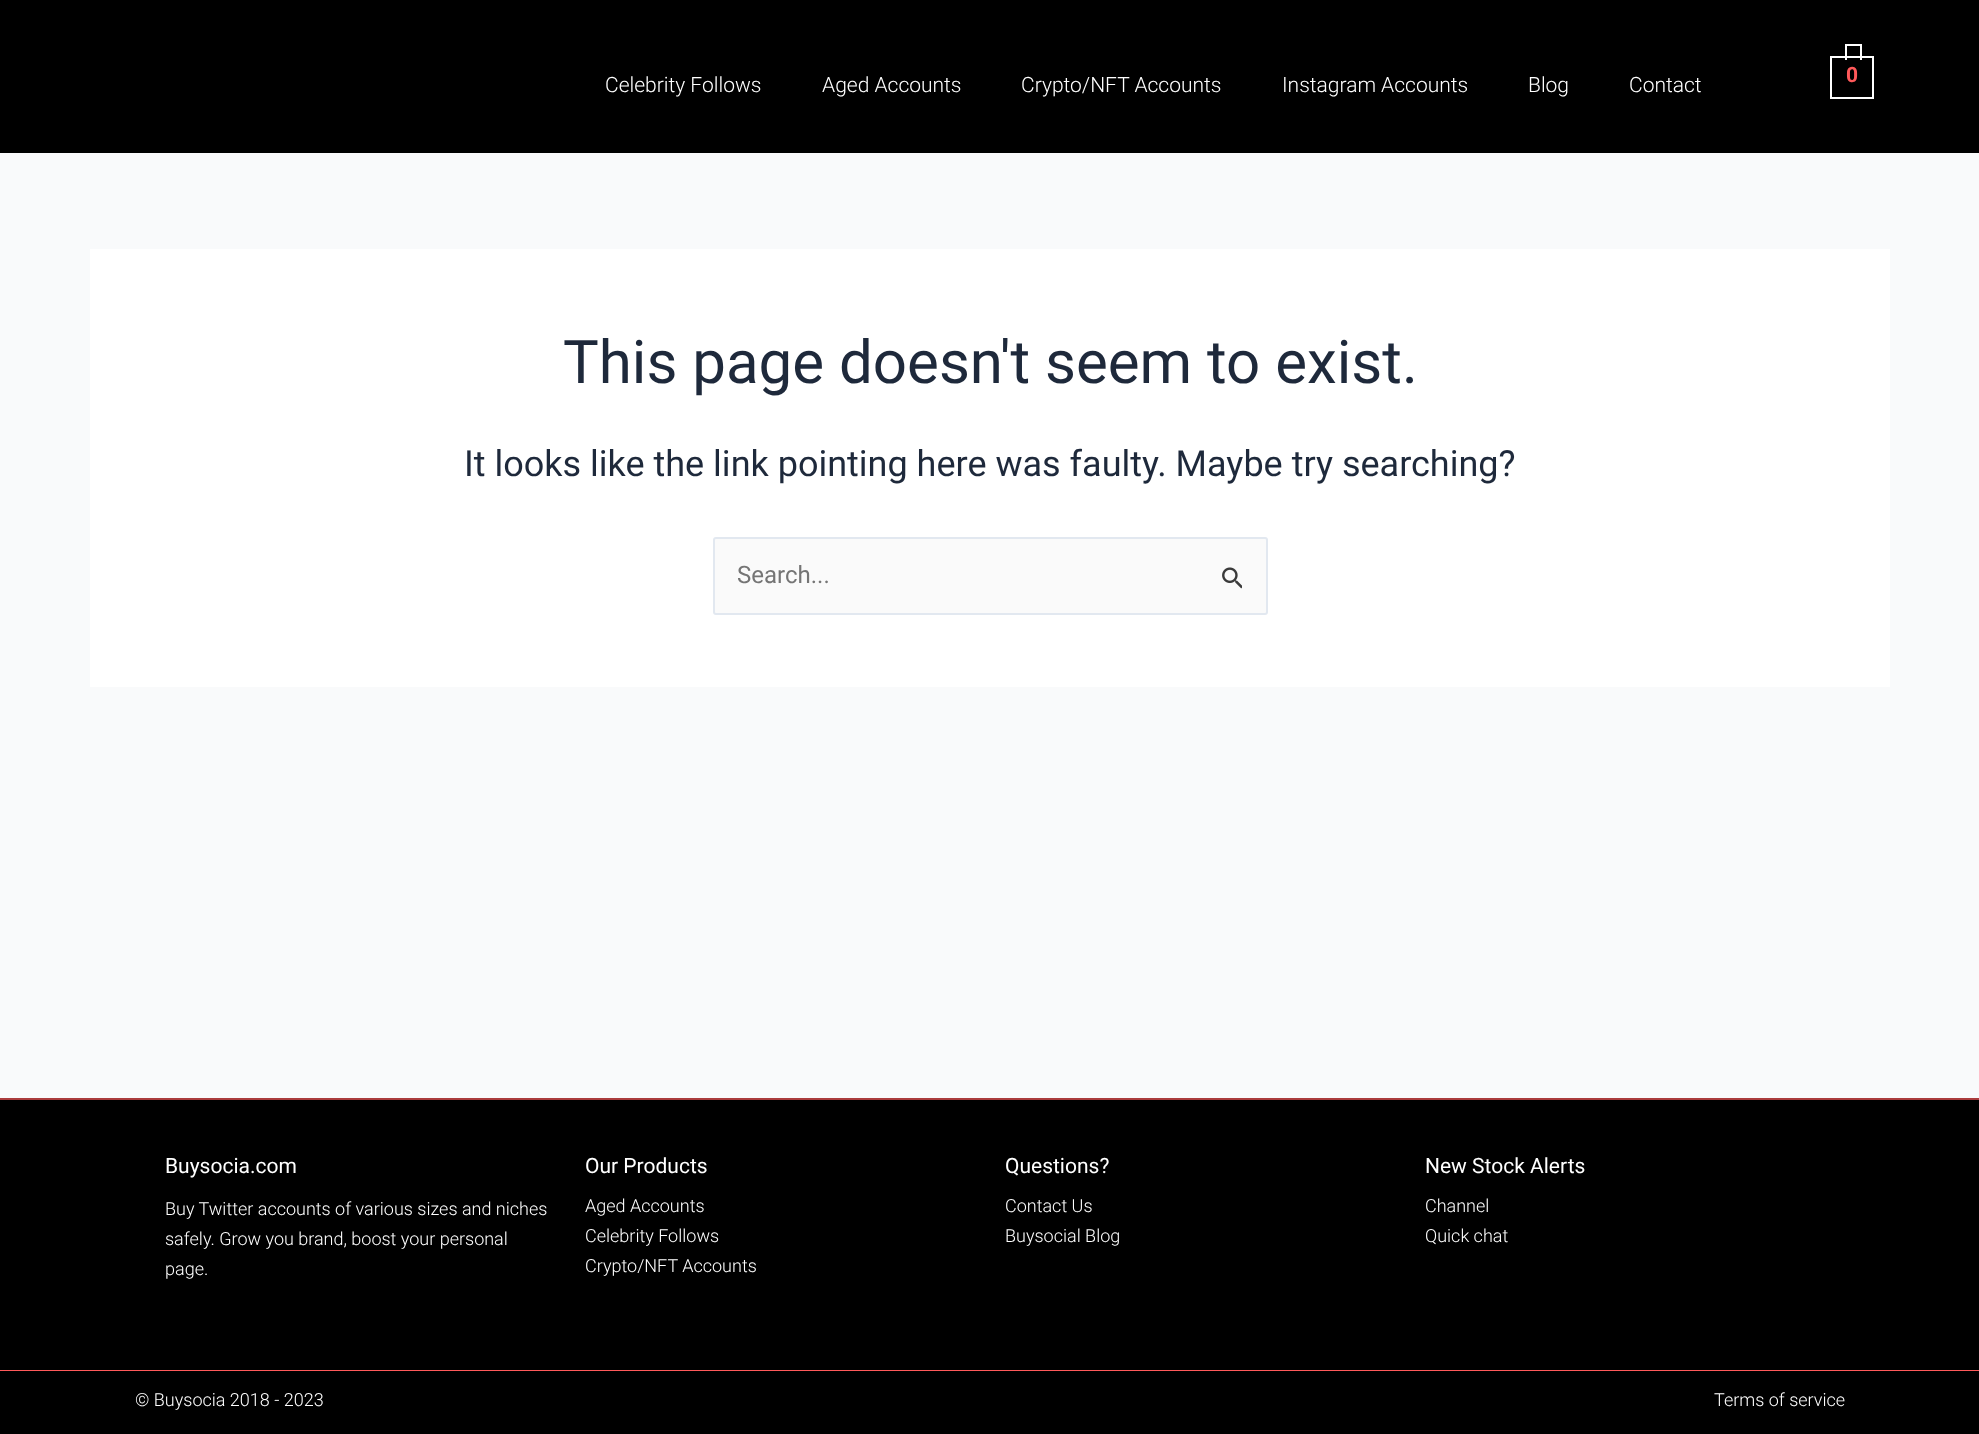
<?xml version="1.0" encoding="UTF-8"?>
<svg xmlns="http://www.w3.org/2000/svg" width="1979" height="1434">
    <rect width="100%" height="100%" fill="#F9FAFB"/>
    <rect x="0" y="0" width="1979" height="153" fill="#000000"/>
    <text x="605" y="92" font-family="Roboto" font-size="21" font-weight="300" fill="#FFFFFF">Celebrity Follows</text>
    <text x="822" y="92" font-family="Roboto" font-size="21" font-weight="300" fill="#FFFFFF">Aged Accounts</text>
    <text x="1021" y="92" font-family="Roboto" font-size="21" font-weight="300" fill="#FFFFFF">Crypto/NFT Accounts</text>
    <text x="1282" y="92" font-family="Roboto" font-size="21" font-weight="300" fill="#FFFFFF">Instagram Accounts</text>
    <text x="1528" y="92" font-family="Roboto" font-size="21" font-weight="300" fill="#FFFFFF">Blog</text>
    <text x="1629" y="92" font-family="Roboto" font-size="21" font-weight="300" fill="#FFFFFF">Contact</text>
    <rect x="1831" y="57" width="42" height="41" fill="none" stroke="#FFFFFF" stroke-width="2"/>
    <rect x="1845" y="44" width="17" height="2" fill="#FFFFFF"/>
    <rect x="1860" y="44" width="2" height="16" fill="#FFFFFF"/>
    <rect x="1845" y="44" width="2" height="16" fill="#FFFFFF"/>
    <text x="1846" y="82" font-family="Roboto" font-size="21" font-weight="700" fill="#FF595A">0</text>
    <rect x="90" y="249" width="1800" height="438" fill="#FFFFFF"/>
    <text x="563" y="383" font-family="Roboto" font-size="60" fill="#1E293B">This page doesn't seem to exist.</text>
    <text x="464" y="476" font-family="Roboto" font-size="36" fill="#1E293B">It looks like the link pointing here was faulty. Maybe try searching?</text>
    <rect x="714" y="538" width="553" height="76" rx="2" fill="#FAFAFA" stroke="#E2E8F0" stroke-width="2"/>
    <text x="737" y="583" font-family="Roboto" font-size="24" fill="#757575">Search...</text>
    <image x="1222" y="567" width="20" height="22" href="img_01.png"/>
    <rect x="0" y="1100" width="1979" height="270" fill="#000000"/>
    <rect x="0" y="1098" width="1979" height="2" fill="#AA3B3C"/>
    <rect x="0" y="1370" width="1979" height="1" fill="#FF595A"/>
    <text x="165" y="1173" font-family="Roboto" font-size="21" fill="#FFFFFF">Buysocia.com</text>
    <text font-family="Roboto" font-size="18" font-weight="300" fill="#FFFFFF">
        <tspan x="165" y="1215">Buy Twitter accounts of various sizes and niches</tspan>
        <tspan x="165" y="1245">safely. Grow you brand, boost your personal</tspan>
        <tspan x="165" y="1275">page.</tspan>
    </text>
    <text x="585" y="1173" font-family="Roboto" font-size="21" fill="#FFFFFF">Our Products</text>
    <text font-family="Roboto" font-size="18" font-weight="300" fill="#FFFFFF">
        <tspan x="585" y="1212">Aged Accounts</tspan>
        <tspan x="585" y="1242">Celebrity Follows</tspan>
        <tspan x="585" y="1272">Crypto/NFT Accounts</tspan>
    </text>
    <text x="1005" y="1173" font-family="Roboto" font-size="21" fill="#FFFFFF">Questions?</text>
    <text font-family="Roboto" font-size="18" font-weight="300" fill="#FFFFFF">
        <tspan x="1005" y="1212">Contact Us</tspan>
        <tspan x="1005" y="1242">Buysocial Blog</tspan>
    </text>
    <text x="1425" y="1173" font-family="Roboto" font-size="21" fill="#FFFFFF">New Stock Alerts</text>
    <text font-family="Roboto" font-size="18" font-weight="300" fill="#FFFFFF">
        <tspan x="1425" y="1212">Channel</tspan>
        <tspan x="1425" y="1242">Quick chat</tspan>
    </text>
    <rect x="0" y="1371" width="1979" height="63" fill="#000000"/>
    <text x="135" y="1406" font-family="Roboto" font-size="18" font-weight="300" fill="#FFFFFF">© Buysocia 2018 - 2023</text>
    <text x="1714" y="1406" font-family="Roboto" font-size="18" font-weight="300" fill="#FFFFFF">Terms of service</text>
</svg>
